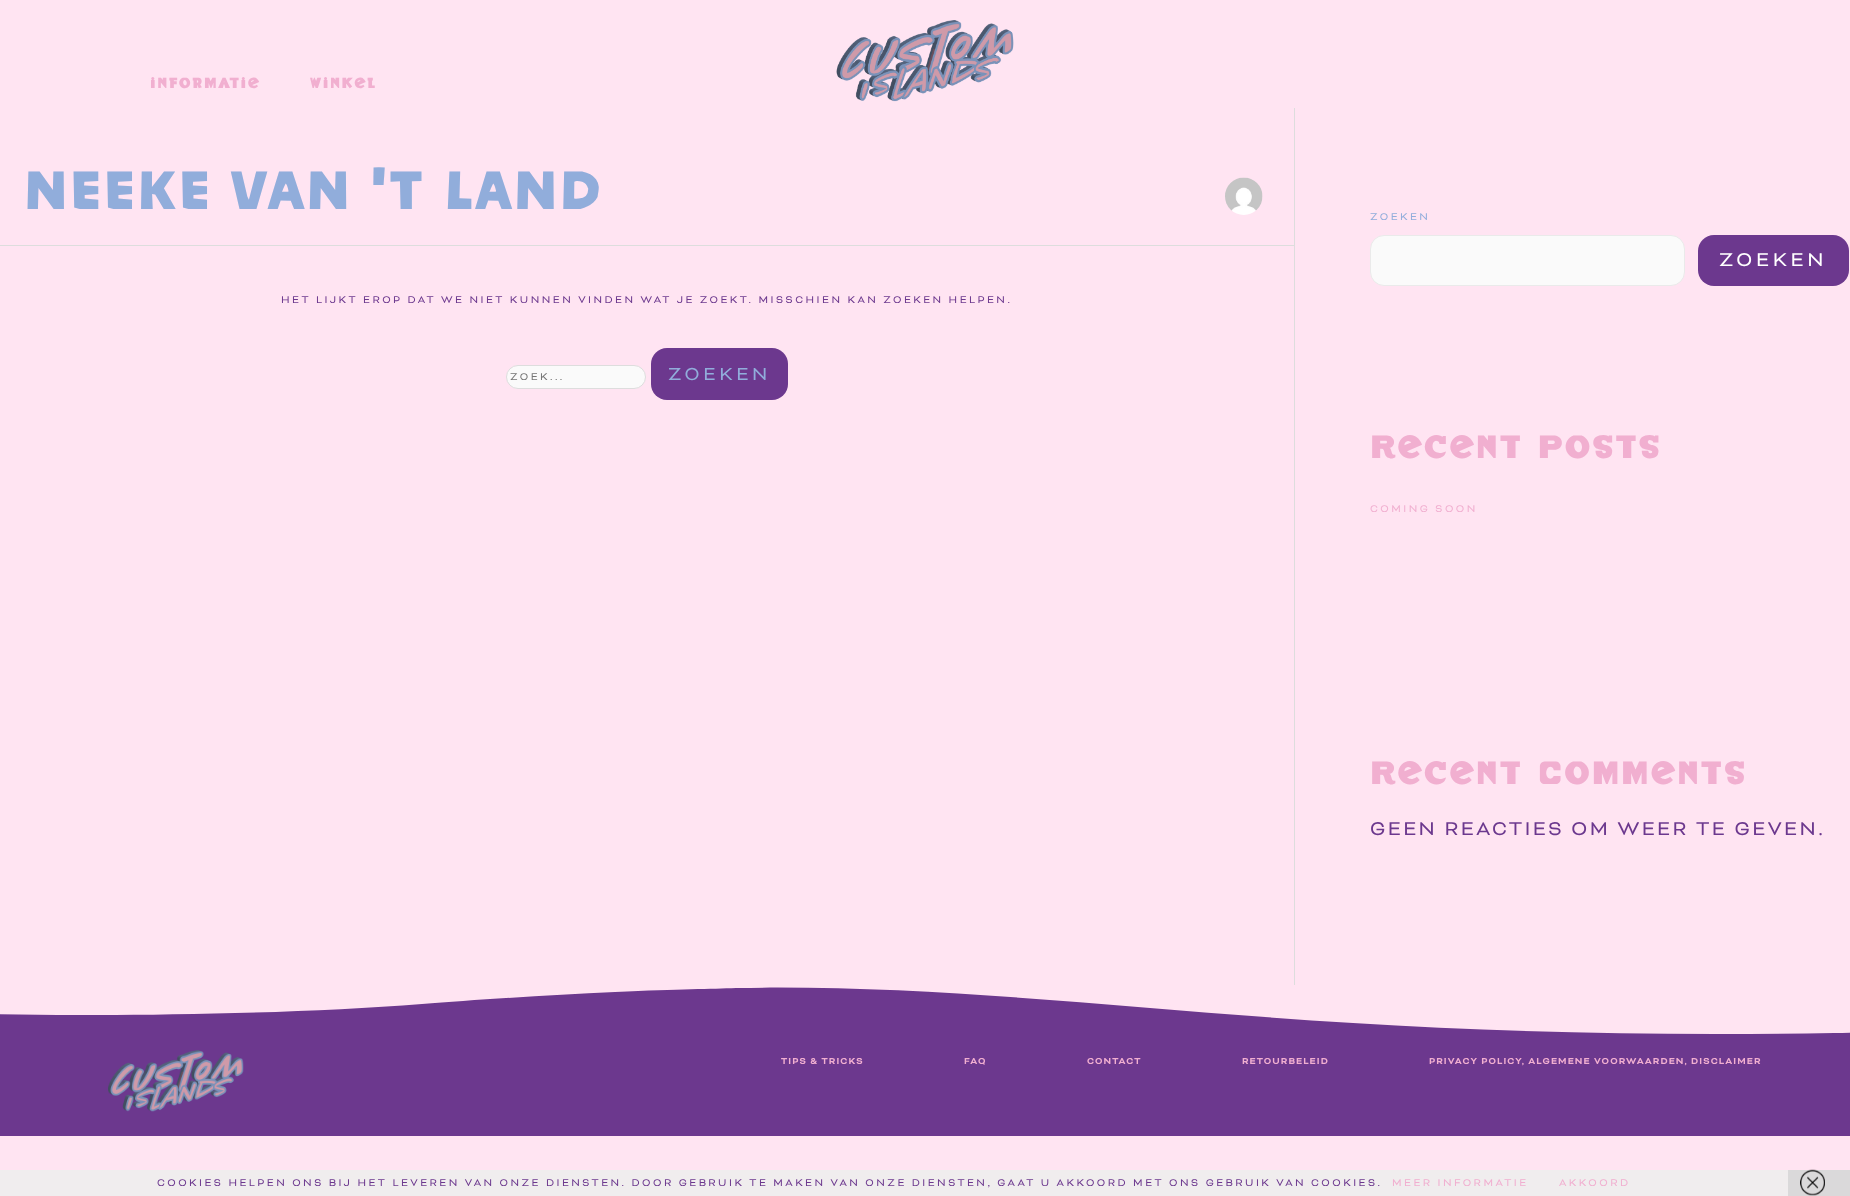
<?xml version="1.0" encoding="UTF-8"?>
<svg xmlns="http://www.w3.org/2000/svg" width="1850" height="1196">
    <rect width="100%" height="100%" fill="#FFE4F2"/>
    <text x="150" y="88" font-family="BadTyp" font-size="13.75" font-weight="700" letter-spacing="1.9" fill="#F1AFD0">informatie</text>
    <text x="310" y="88" font-family="BadTyp" font-size="13.75" font-weight="700" letter-spacing="1.9" fill="#F1AFD0">winkel</text>
    <image x="836" y="20" width="178" height="82" href="img_01.png"/>
    <rect x="1294" y="108" width="1" height="878" fill="#DDDDDD"/>
    <rect x="0" y="245" width="1294" height="1" fill="#DDDDDD"/>
    <text x="25" y="209" font-family="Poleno" font-size="60.75" font-weight="500" letter-spacing="3.75" fill="#91ADDB">neeke van 't land</text>
    <image x="1225" y="177" width="38" height="38" href="img_02.png"/>
    <text x="281" y="303" font-family="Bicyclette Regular" font-size="11.25" letter-spacing="2.5" fill="#6C388E">HET LIJKT EROP DAT WE NIET KUNNEN VINDEN WAT JE ZOEKT. MISSCHIEN KAN ZOEKEN HELPEN.</text>
    <rect x="506.5" y="365.5" width="139" height="23" rx="11.5" fill="#FAFAFA" stroke="#DDDDDD"/>
    <text x="510" y="380" font-family="Bicyclette Regular" font-size="11.25" letter-spacing="2.5" fill="#757575">ZOEK...</text>
    <rect x="651" y="348" width="137" height="52" rx="16" fill="#6C388E"/>
    <text x="668" y="380" font-family="Bicyclette Regular" font-size="20" letter-spacing="3.75" fill="#91ADDB">ZOEKEN</text>
    <text x="1370" y="220" font-family="Bicyclette Regular" font-size="11.25" letter-spacing="2.5" fill="#91ADDB">ZOEKEN</text>
    <rect x="1370.5" y="235.5" width="314" height="50" rx="13.5" fill="#FAFAFA" stroke="#EAEAEA"/>
    <rect x="1698" y="235" width="151" height="51" rx="16" fill="#6C388E"/>
    <text x="1719" y="266" font-family="Bicyclette Regular" font-size="21.25" letter-spacing="3.75" fill="#FFFFFF">ZOEKEN</text>
    <text x="1370" y="458" font-family="BadTyp" font-size="30" font-weight="700" letter-spacing="2.5" fill="#F1AFD0">Recent Posts</text>
    <text x="1370" y="512" font-family="Bicyclette Regular" font-size="11.25" letter-spacing="2.5" fill="#F1AFD0">COMING SOON</text>
    <text x="1370" y="784" font-family="BadTyp" font-size="30" font-weight="700" letter-spacing="2.5" fill="#F1AFD0">Recent Comments</text>
    <text x="1370" y="835" font-family="Bicyclette Regular" font-size="21.25" letter-spacing="2.5" fill="#6C388E">GEEN REACTIES OM WEER TE GEVEN.</text>
    <rect x="0" y="987" width="1850" height="149" fill="#6C388E"/>
    <path d="M 736 988 C 942 984 1147 1011 1353 1023 C 1513 1033 1674 1036 1834 1033 C 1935 1031 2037 1027 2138 1020 V 985 H -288 V 1000 C -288 1000 -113 1016 97 1015 C 192 1015 322 1012 422 1004 C 473 1000 548 995 615 992 C 681 989 711 989 736 988 Z" fill="#FFE4F2"/>
    <image x="108" y="1050" width="136" height="62" href="img_03.png"/>
    <text x="781" y="1064" font-family="Bicyclette Regular" font-size="10" font-weight="700" letter-spacing="1.1" fill="#F1AFD0">TIPS &amp; TRICKS</text>
    <text x="964" y="1064" font-family="Bicyclette Regular" font-size="10" font-weight="700" letter-spacing="1.1" fill="#F1AFD0">FAQ</text>
    <text x="1087" y="1064" font-family="Bicyclette Regular" font-size="10" font-weight="700" letter-spacing="1.1" fill="#F1AFD0">CONTACT</text>
    <text x="1242" y="1064" font-family="Bicyclette Regular" font-size="10" font-weight="700" letter-spacing="1.1" fill="#F1AFD0">RETOURBELEID</text>
    <text x="1429" y="1064" font-family="Bicyclette Regular" font-size="10" font-weight="700" letter-spacing="1.1" fill="#F1AFD0">PRIVACY POLICY, ALGEMENE VOORWAARDEN, DISCLAIMER</text>
    <rect x="0" y="1170" width="1788" height="26" fill="#F0EDEE"/>
    <text x="157" y="1186" font-family="Bicyclette Regular" font-size="11.25" letter-spacing="2.5" fill="#6C388E">COOKIES HELPEN ONS BIJ HET LEVEREN VAN ONZE DIENSTEN. DOOR GEBRUIK TE MAKEN VAN ONZE DIENSTEN, GAAT U AKKOORD MET ONS GEBRUIK VAN COOKIES.</text>
    <text x="1392" y="1186" font-family="Bicyclette Regular" font-size="11.25" letter-spacing="2.5" fill="#F1AFD0">MEER INFORMATIE</text>
    <text x="1559" y="1186" font-family="Bicyclette Regular" font-size="11.25" letter-spacing="2.5" fill="#F1AFD0">AKKOORD</text>
    <rect x="1788" y="1170" width="62" height="26" fill="#DAD9DA"/>
    <image x="1800" y="1169" width="25" height="27" href="img_04.png"/>
</svg>
